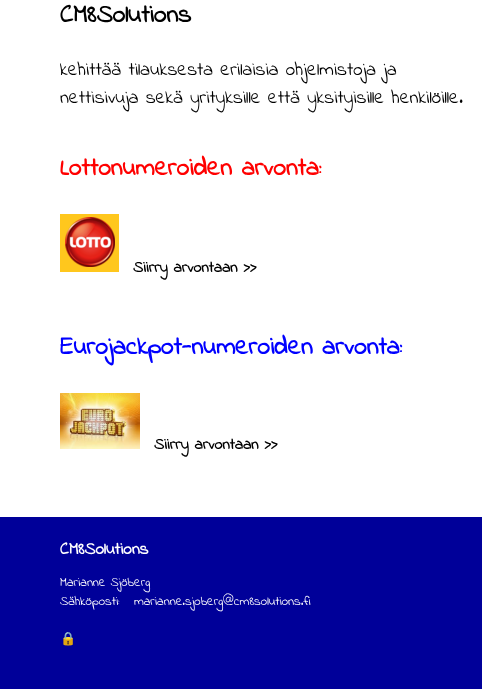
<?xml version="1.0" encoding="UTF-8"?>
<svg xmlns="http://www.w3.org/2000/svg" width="482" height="689">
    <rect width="100%" height="100%" fill="#FFFFFF"/>
    <text x="60" y="22" font-family="Indie Flower" font-size="25.6" font-weight="700" fill="#000000">CM8Solutions</text>
    <text font-family="Indie Flower" font-size="19.2" fill="#000000">
        <tspan x="60" y="75">kehittää tilauksesta erilaisia ohjelmistoja ja</tspan>
        <tspan x="60" y="103">nettisivuja sekä yrityksille että yksityisille henkilöille.</tspan>
    </text>
    <text x="60" y="175" font-family="Indie Flower" font-size="25.6" font-weight="700" fill="#FF0000">Lottonumeroiden arvonta:</text>
    <image x="60" y="214" width="59" height="58" href="img_01.png"/>
    <text x="133" y="272" font-family="Indie Flower" font-size="16" font-weight="700" fill="#000000">Siirry arvontaan &gt;&gt;</text>
    <text x="60" y="354" font-family="Indie Flower" font-size="25.6" font-weight="700" fill="#0000FF">Eurojackpot-numeroiden arvonta:</text>
    <image x="60" y="393" width="80" height="56" href="img_02.png"/>
    <text x="154" y="449" font-family="Indie Flower" font-size="16" font-weight="700" fill="#000000">Siirry arvontaan &gt;&gt;</text>
    <rect x="0" y="517" width="482" height="172" fill="#000099"/>
    <text x="60" y="554" font-family="Indie Flower" font-size="17.25" font-weight="700" fill="#FFFFFF">CM8Solutions</text>
    <text font-family="Indie Flower" font-size="13" fill="#FFFFFF">
        <tspan x="60" y="586">Marianne Sjöberg</tspan>
        <tspan x="60" y="605">Sähköposti:</tspan>
    </text>
    <text x="134" y="605" font-family="Indie Flower" font-size="13" fill="#FFFFFF">marianne.sjoberg@cm8solutions.fi</text>
    <text x="60" y="643" font-family="Noto Color Emoji" font-size="13" fill="#FFFFFF">🔒</text>
</svg>
